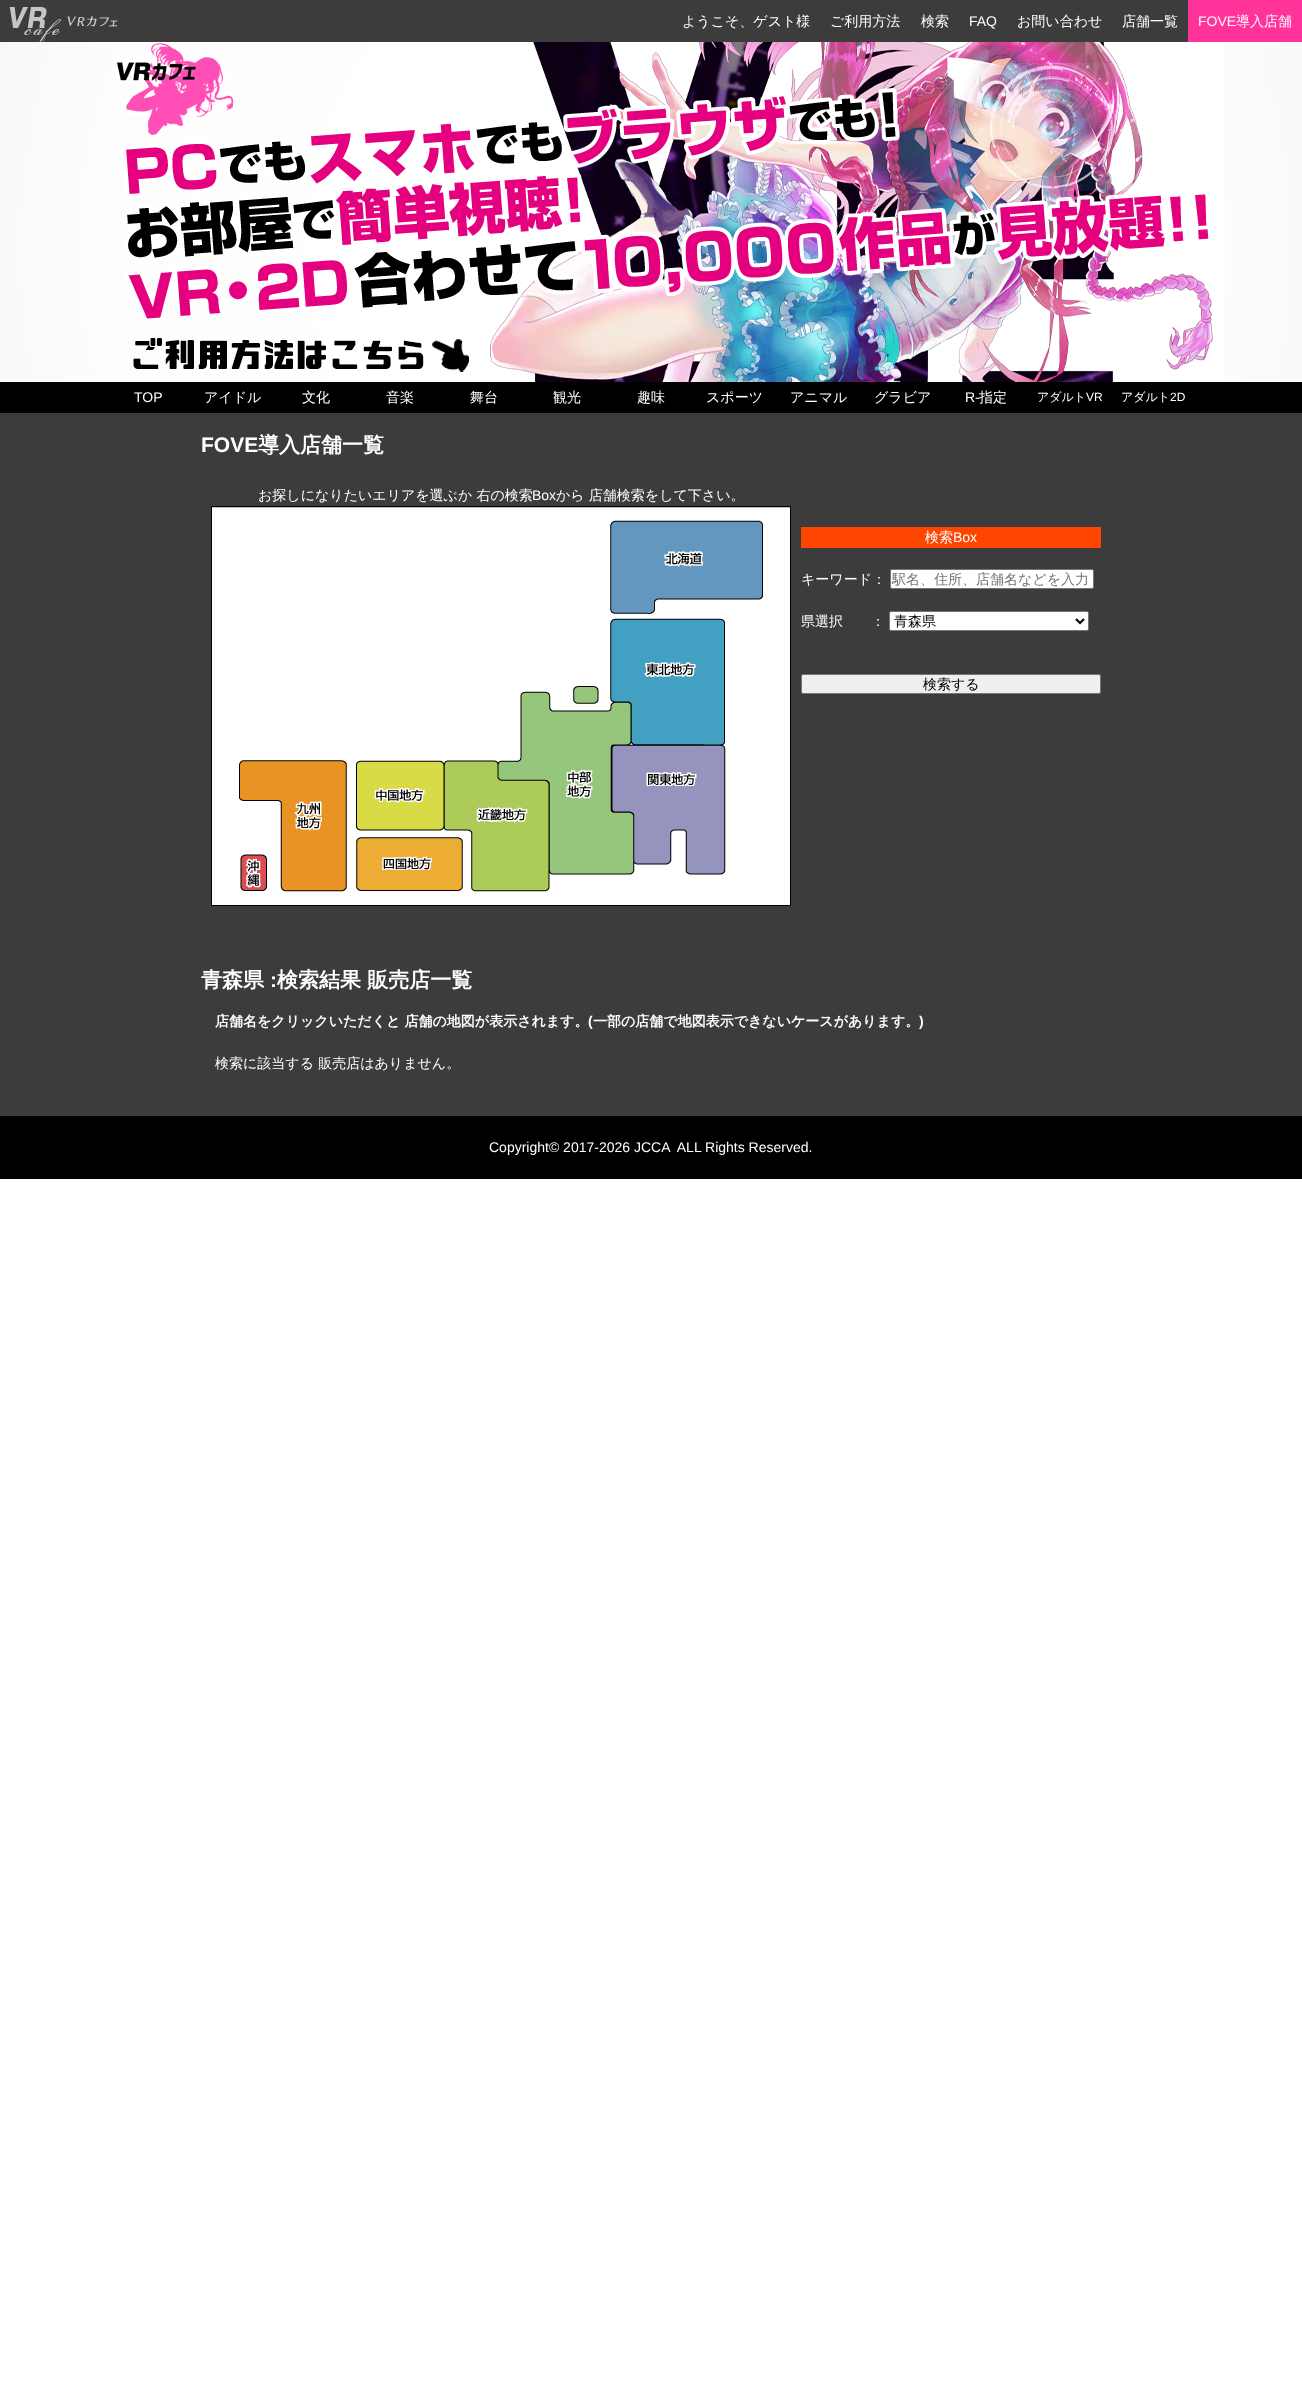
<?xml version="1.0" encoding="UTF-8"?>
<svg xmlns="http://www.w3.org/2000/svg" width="1302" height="2385">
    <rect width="100%" height="100%" fill="#FFFFFF"/>
    <rect x="0" y="0" width="1302" height="1116" fill="#3C3C3C"/>
    <image x="9" y="7" width="109" height="35" href="img_01.png"/>
    <text x="682" y="26" font-family="WenQuanYi Zen Hei" font-size="14" font-weight="500" fill="#FFFFFF">ようこそ、ゲスト様</text>
    <text x="830" y="26" font-family="WenQuanYi Zen Hei" font-size="14" font-weight="500" fill="#FFFFFF">ご利用方法</text>
    <text x="921" y="26" font-family="WenQuanYi Zen Hei" font-size="14" font-weight="500" fill="#FFFFFF">検索</text>
    <text x="969" y="26" font-family="Liberation Sans" font-size="14" fill="#FFFFFF">FAQ</text>
    <text x="1017" y="26" font-family="WenQuanYi Zen Hei" font-size="14" font-weight="500" fill="#FFFFFF">お問い合わせ</text>
    <text x="1122" y="26" font-family="WenQuanYi Zen Hei" font-size="14" font-weight="500" fill="#FFFFFF">店舗一覧</text>
    <rect x="1188" y="0" width="114" height="42" fill="#FF3399"/>
    <text x="1198" y="26" font-family="Liberation Sans" font-size="14" fill="#FFFFFF">FOVE</text>
    <text x="1236" y="26" font-family="WenQuanYi Zen Hei" font-size="14" font-weight="500" fill="#FFFFFF">導入店舗</text>
    <image x="0" y="42" width="1302" height="340" href="img_02.png"/>
    <rect x="0" y="382" width="1302" height="31" fill="#000000"/>
    <text x="134" y="402" font-family="Liberation Sans" font-size="14" fill="#FFFFFF">TOP</text>
    <text x="204" y="402" font-family="WenQuanYi Zen Hei" font-size="14" font-weight="500" fill="#FFFFFF">アイドル</text>
    <text x="302" y="402" font-family="WenQuanYi Zen Hei" font-size="14" font-weight="500" fill="#FFFFFF">文化</text>
    <text x="386" y="402" font-family="WenQuanYi Zen Hei" font-size="14" font-weight="500" fill="#FFFFFF">音楽</text>
    <text x="470" y="402" font-family="WenQuanYi Zen Hei" font-size="14" font-weight="500" fill="#FFFFFF">舞台</text>
    <text x="553" y="402" font-family="WenQuanYi Zen Hei" font-size="14" font-weight="500" fill="#FFFFFF">観光</text>
    <text x="637" y="402" font-family="WenQuanYi Zen Hei" font-size="14" font-weight="500" fill="#FFFFFF">趣味</text>
    <text x="706" y="402" font-family="WenQuanYi Zen Hei" font-size="14" font-weight="500" fill="#FFFFFF">スポーツ</text>
    <text x="790" y="402" font-family="WenQuanYi Zen Hei" font-size="14" font-weight="500" fill="#FFFFFF">アニマル</text>
    <text x="874" y="402" font-family="WenQuanYi Zen Hei" font-size="14" font-weight="500" fill="#FFFFFF">グラビア</text>
    <text x="965" y="402" font-family="Liberation Sans" font-size="14" fill="#FFFFFF">R-</text>
    <text x="979" y="402" font-family="WenQuanYi Zen Hei" font-size="14" font-weight="500" fill="#FFFFFF">指定</text>
    <text x="1037" y="401" font-family="WenQuanYi Zen Hei" font-size="12" font-weight="500" fill="#FFFFFF">アダルト</text>
    <text x="1086" y="401" font-family="Liberation Sans" font-size="12" fill="#FFFFFF">VR</text>
    <text x="1121" y="401" font-family="WenQuanYi Zen Hei" font-size="12" font-weight="500" fill="#FFFFFF">アダルト</text>
    <text x="1170" y="401" font-family="Liberation Sans" font-size="12" fill="#FFFFFF">2D</text>
    <text x="201" y="452" font-family="Liberation Sans" font-size="21" font-weight="700" fill="#FFFFFF">FOVE</text>
    <text x="258" y="452" font-family="WenQuanYi Zen Hei" font-size="21" font-weight="700" fill="#FFFFFF">導入店舗一覧</text>
    <text x="258" y="500" font-family="WenQuanYi Zen Hei" font-size="14" font-weight="500" fill="#FFFFFF">お探しになりたいエリアを選ぶか 右の検索</text>
    <text x="532" y="500" font-family="Liberation Sans" font-size="14" fill="#FFFFFF">Box</text>
    <text x="556" y="500" font-family="WenQuanYi Zen Hei" font-size="14" font-weight="500" fill="#FFFFFF">から 店舗検索をして下さい。</text>
    <image x="211" y="506" width="580" height="400" href="img_03.png"/>
    <rect x="801" y="527" width="300" height="21" fill="#FF4500"/>
    <text x="925" y="542" font-family="WenQuanYi Zen Hei" font-size="14" font-weight="500" fill="#FFFFFF">検索</text>
    <text x="953" y="542" font-family="Liberation Sans" font-size="14" fill="#FFFFFF">Box</text>
    <text x="801" y="584" font-family="WenQuanYi Zen Hei" font-size="14" font-weight="500" fill="#FFFFFF">キーワード：</text>
    <rect x="890.5" y="569.5" width="203" height="19" rx="1.5" fill="#FFFFFF" stroke="#767676"/>
    <text x="892" y="584" font-family="WenQuanYi Zen Hei" font-size="14" font-weight="500" fill="#757575">駅名、住所、店舗名などを入力</text>
    <text x="801" y="626" font-family="WenQuanYi Zen Hei" font-size="14" font-weight="500" fill="#FFFFFF">県選択　　：</text>
    <rect x="889.5" y="611.5" width="199" height="19" rx="1.5" fill="#FFFFFF" stroke="#767676"/>
    <path d="M 1076 619 L 1080 623 L 1084 619" fill="none" stroke="#000000" stroke-width="2"/>
    <text x="894" y="626" font-family="WenQuanYi Zen Hei" font-size="14" font-weight="500" fill="#000000">青森県</text>
    <rect x="801.5" y="674.5" width="299" height="19" rx="1.5" fill="#EFEFEF" stroke="#767676"/>
    <text x="923" y="689" font-family="WenQuanYi Zen Hei" font-size="14" font-weight="500" fill="#000000">検索する</text>
    <text x="201" y="987" font-family="WenQuanYi Zen Hei" font-size="21" font-weight="700" fill="#FFFFFF">青森県</text>
    <text x="270" y="987" font-family="Liberation Sans" font-size="21" font-weight="700" fill="#FFFFFF">:</text>
    <text x="277" y="987" font-family="WenQuanYi Zen Hei" font-size="21" font-weight="700" fill="#FFFFFF">検索結果 販売店一覧</text>
    <text x="215" y="1026" font-family="WenQuanYi Zen Hei" font-size="14" font-weight="700" fill="#FFFFFF">店舗名をクリックいただくと 店舗の地図が表示されます。</text>
    <text x="588" y="1026" font-family="Liberation Sans" font-size="14" font-weight="700" fill="#FFFFFF">(</text>
    <text x="593" y="1026" font-family="WenQuanYi Zen Hei" font-size="14" font-weight="700" fill="#FFFFFF">一部の店舗で地図表示できないケースがあります。</text>
    <text x="919" y="1026" font-family="Liberation Sans" font-size="14" font-weight="700" fill="#FFFFFF">)</text>
    <text x="215" y="1068" font-family="WenQuanYi Zen Hei" font-size="14" font-weight="500" fill="#FFFFFF">検索に該当する 販売店はありません。</text>
    <rect x="0" y="1116" width="1302" height="63" fill="#000000"/>
    <text x="489" y="1152" font-family="Liberation Sans" font-size="14" fill="#FFFFFF" xml:space="preserve">Copyright© 2017-2026 JCCA  ALL Rights Reserved.</text>
</svg>
